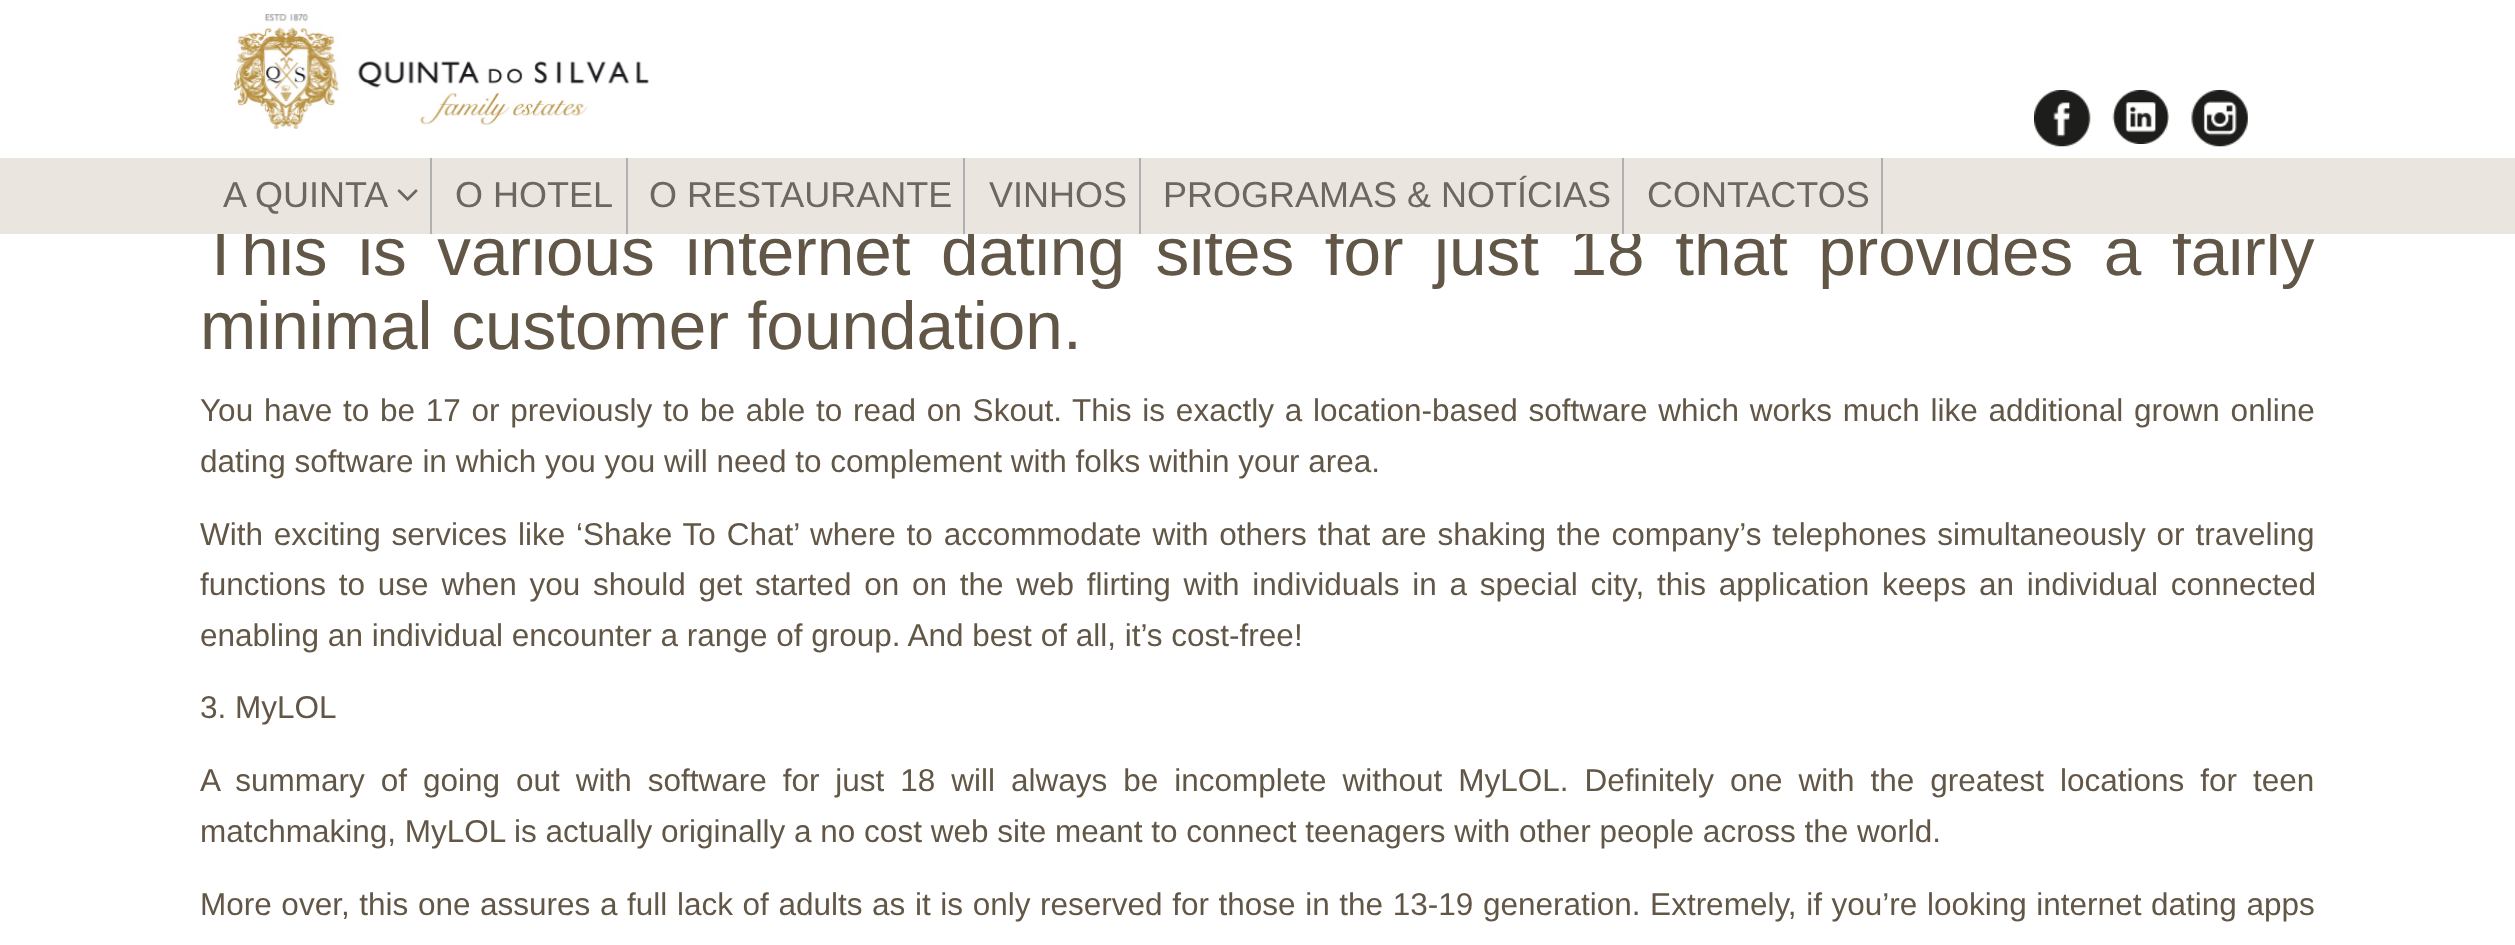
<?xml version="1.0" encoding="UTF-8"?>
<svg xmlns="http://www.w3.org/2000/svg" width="2515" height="945">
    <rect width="100%" height="100%" fill="#FFFFFF"/>
    <image x="234" y="14" width="415" height="115" href="img_01.png"/>
    <image x="2034" y="90" width="57" height="57" href="img_02.png"/>
    <image x="2112" y="90" width="57" height="54" href="img_03.png"/>
    <image x="2191" y="90" width="57" height="57" href="img_04.png"/>
    <text x="200" y="275" word-spacing="11.75" font-family="Liberation Sans" font-size="67.5" fill="#625747">This is various internet dating sites for just 18 that provides a fairly</text>
    <rect x="0" y="158" width="2515" height="76" fill="#EAE6DF"/>
    <rect x="430" y="158" width="2" height="76" fill="#B1B1B1"/>
    <text x="223" y="207" font-family="Liberation Sans" font-size="36" fill="#6B685F">A QUINTA</text>
    <image x="397" y="189" width="21" height="12" href="img_05.png"/>
    <rect x="626" y="158" width="2" height="76" fill="#B1B1B1"/>
    <text x="455" y="207" font-family="Liberation Sans" font-size="36" fill="#6B685F">O HOTEL</text>
    <rect x="963" y="158" width="2" height="76" fill="#B1B1B1"/>
    <text x="649" y="207" font-family="Liberation Sans" font-size="36" fill="#6B685F">O RESTAURANTE</text>
    <rect x="1139" y="158" width="2" height="76" fill="#B1B1B1"/>
    <text x="989" y="207" font-family="Liberation Sans" font-size="36" fill="#6B685F">VINHOS</text>
    <rect x="1622" y="158" width="2" height="76" fill="#B1B1B1"/>
    <text x="1163" y="207" font-family="Liberation Sans" font-size="36" fill="#6B685F">PROGRAMAS &amp; NOTÍCIAS</text>
    <rect x="1881" y="158" width="2" height="76" fill="#B1B1B1"/>
    <text x="1647" y="207" font-family="Liberation Sans" font-size="36" fill="#6B685F">CONTACTOS</text>
    <text x="200" y="349" font-family="Liberation Sans" font-size="67.5" fill="#625747">minimal customer foundation.</text>
    <text font-family="Liberation Sans" font-size="31.5" fill="#625747">
        <tspan x="200" y="421" word-spacing="2">You have to be 17 or previously to be able to read on Skout. This is exactly a location-based software which works much like additional grown online</tspan>
        <tspan x="200" y="472">dating software in which you you will need to complement with folks within your area.</tspan>
    </text>
    <text font-family="Liberation Sans" font-size="31.5" fill="#625747">
        <tspan x="200" y="545" word-spacing="2.1">With exciting services like ‘Shake To Chat’ where to accommodate with others that are shaking the company’s telephones simultaneously or traveling</tspan>
        <tspan x="200" y="595" word-spacing="4">functions to use when you should get started on on the web flirting with individuals in a special city, this application keeps an individual connected</tspan>
        <tspan x="200" y="646">enabling an individual encounter a range of group. And best of all, it’s cost-free!</tspan>
    </text>
    <text x="200" y="718" font-family="Liberation Sans" font-size="31.5" fill="#625747">3. MyLOL</text>
    <text font-family="Liberation Sans" font-size="31.5" fill="#625747">
        <tspan x="200" y="791" word-spacing="7.2">A summary of going out with software for just 18 will always be incomplete without MyLOL. Definitely one with the greatest locations for teen</tspan>
        <tspan x="200" y="842">matchmaking, MyLOL is actually originally a no cost web site meant to connect teenagers with other people across the world.</tspan>
    </text>
    <text x="200" y="915" word-spacing="0.85" font-family="Liberation Sans" font-size="31.5" fill="#625747">More over, this one assures a full lack of adults as it is only reserved for those in the 13-19 generation. Extremely, if you’re looking internet dating apps</text>
</svg>
